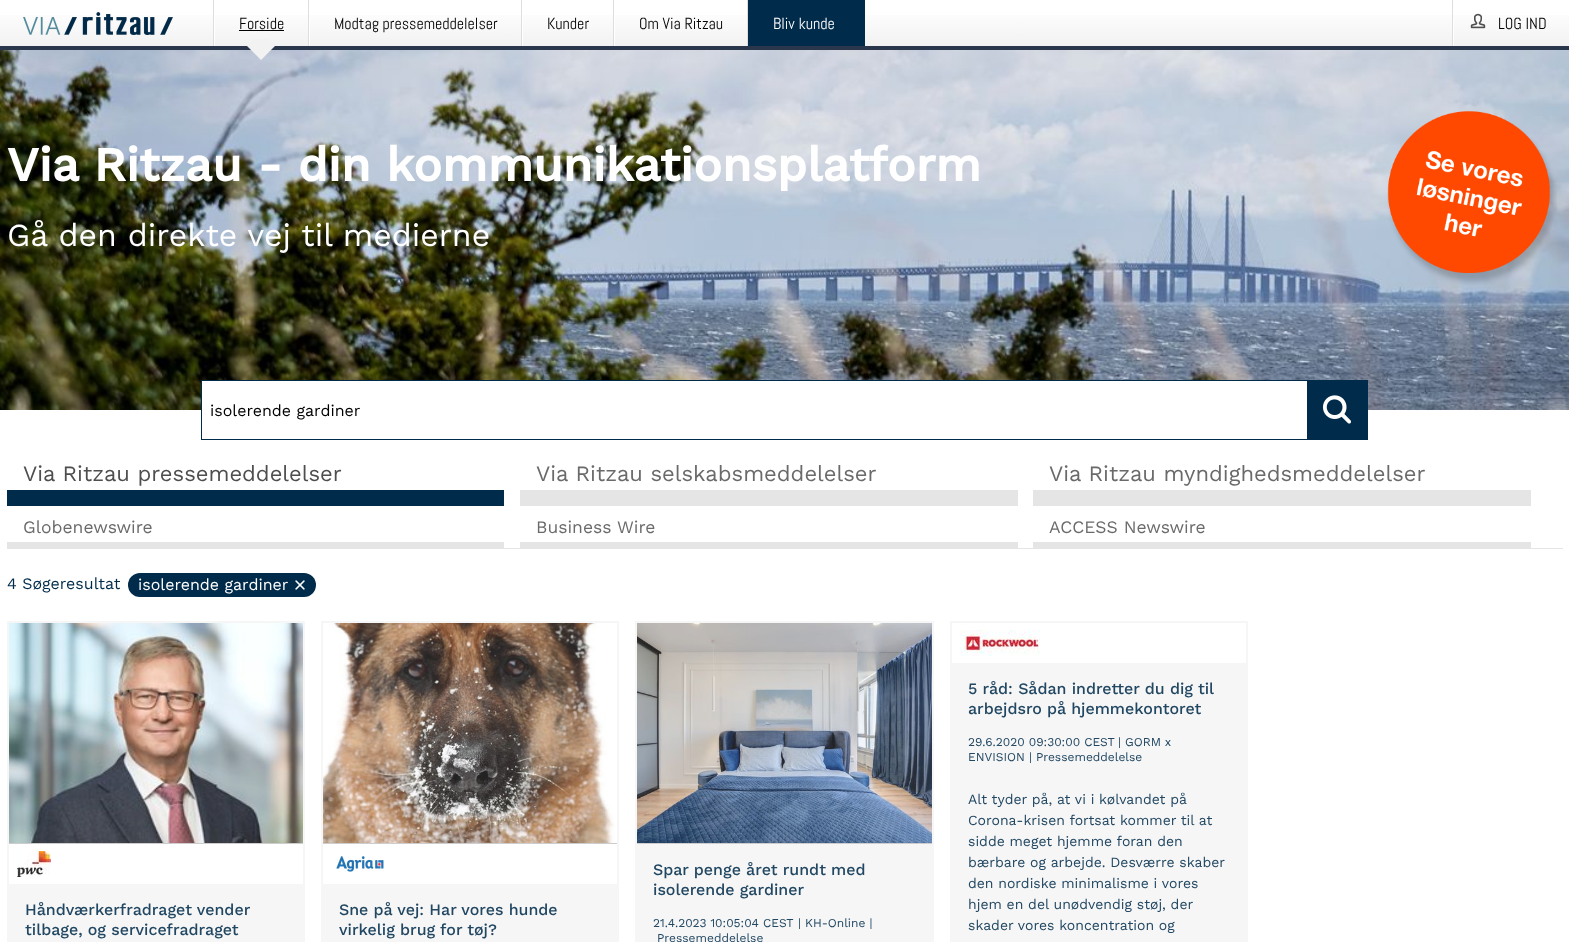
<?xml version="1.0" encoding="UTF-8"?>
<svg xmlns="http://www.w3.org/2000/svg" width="1569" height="942">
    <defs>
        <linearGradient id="g1" gradientUnits="userSpaceOnUse" x1="785" y1="0" x2="785" y2="46"><stop offset="0.16" stop-color="#FFFFFF"/><stop offset="1" stop-color="#F2F2F2"/></linearGradient>
        <linearGradient id="g2" gradientUnits="userSpaceOnUse" x1="262" y1="0" x2="262" y2="46"><stop offset="0.16" stop-color="#FFFFFF"/><stop offset="1" stop-color="#F2F2F2"/></linearGradient>
    </defs>
    <rect width="100%" height="100%" fill="#FFFFFF"/>
    <rect x="0" y="15" width="1569" height="31" fill="url(#g1)"/>
    <rect x="0" y="46" width="1569" height="4" fill="#2A364B"/>
    <image x="23" y="12" width="150" height="23" href="img_01.png"/>
    <rect x="214" y="15" width="1" height="31" fill="#FFFFFF"/>
    <rect x="213" y="0" width="1" height="46" fill="#DEDEDE"/>
    <text x="239" y="29" font-family="Abel" font-size="16" fill="#000000">Forside</text>
    <rect x="239" y="30" width="45" height="1" fill="#000000"/>
    <image x="0" y="50" width="1569" height="360" href="img_03.png"/>
    <path d="M 261 32 L 275 46 L 261 60 L 247 46 Z" fill="#F2F2F2"/>
    <rect x="255" y="32" width="12" height="7" fill="url(#g2)"/>
    <rect x="309" y="15" width="1" height="31" fill="#FFFFFF"/>
    <rect x="308" y="0" width="1" height="46" fill="#DEDEDE"/>
    <text x="334" y="29" font-family="Abel" font-size="16" fill="#000000">Modtag pressemeddelelser</text>
    <rect x="522" y="15" width="1" height="31" fill="#FFFFFF"/>
    <rect x="521" y="0" width="1" height="46" fill="#DEDEDE"/>
    <text x="547" y="29" font-family="Abel" font-size="16" fill="#000000">Kunder</text>
    <rect x="614" y="15" width="1" height="31" fill="#FFFFFF"/>
    <rect x="613" y="0" width="1" height="46" fill="#DEDEDE"/>
    <text x="639" y="29" font-family="Abel" font-size="16" fill="#000000">Om Via Ritzau</text>
    <rect x="748" y="0" width="117" height="46" fill="#002B4B"/>
    <rect x="747" y="0" width="1" height="46" fill="#DEDEDE"/>
    <text x="773" y="29" font-family="Abel" font-size="16" fill="#FFFFFF">Bliv kunde</text>
    <rect x="1453" y="15" width="1" height="31" fill="#FFFFFF"/>
    <rect x="1452" y="0" width="1" height="46" fill="#DEDEDE"/>
    <image x="1470" y="13" width="16" height="16" href="img_02.png"/>
    <text x="1498" y="29" font-family="Abel" font-size="16" fill="#000000">LOG IND</text>
    <text x="7" y="181" font-family="Work Sans" font-size="48" font-weight="700" fill="#FFFFFF">Via Ritzau - din kommunikationsplatform</text>
    <text x="7" y="246" font-family="Work Sans" font-size="32" fill="#FFFFFF">Gå den direkte vej til medierne</text>
    <image x="1387" y="111" width="170" height="174" href="img_04.png"/>
    <rect x="202" y="381" width="1105" height="29" fill="#FFFFFF"/>
    <rect x="201.5" y="380.5" width="1106" height="59" fill="none" stroke="#002B4B"/>
    <text x="210" y="416" font-family="Work Sans" font-size="16" fill="#000000">isolerende gardiner</text>
    <rect x="1308" y="380" width="60" height="60" fill="#002B4B"/>
    <image x="1322" y="395" width="29" height="29" href="img_05.png"/>
    <rect x="7" y="548" width="1556" height="1" fill="#E5E5E5"/>
    <rect x="7" y="490" width="497" height="16" fill="#002B4B"/>
    <text x="23" y="481" font-family="Work Sans" font-size="22" fill="#4E4E4E">Via Ritzau pressemeddelelser</text>
    <rect x="520" y="490" width="498" height="16" fill="#E5E5E5"/>
    <text x="536" y="481" font-family="Work Sans" font-size="22" fill="#6A6A6A">Via Ritzau selskabsmeddelelser</text>
    <rect x="1033" y="490" width="498" height="16" fill="#E5E5E5"/>
    <text x="1049" y="481" font-family="Work Sans" font-size="22" fill="#6A6A6A">Via Ritzau myndighedsmeddelelser</text>
    <rect x="7" y="542" width="497" height="6" fill="#E5E5E5"/>
    <text x="23" y="533" font-family="Work Sans" font-size="17.5" fill="#6A6A6A">Globenewswire</text>
    <rect x="520" y="542" width="498" height="6" fill="#E5E5E5"/>
    <text x="536" y="533" font-family="Work Sans" font-size="17.5" fill="#6A6A6A">Business Wire</text>
    <rect x="1033" y="542" width="498" height="6" fill="#E5E5E5"/>
    <text x="1049" y="533" font-family="Work Sans" font-size="17.5" fill="#6A6A6A">ACCESS Newswire</text>
    <text x="7" y="589" font-family="Work Sans" font-size="16" fill="#002B4B">4 Søgeresultat</text>
    <rect x="128" y="573" width="188" height="24" rx="12" fill="#002B4B"/>
    <text x="138" y="590" font-family="Work Sans" font-size="16" fill="#FFFFFF">isolerende gardiner</text>
    <image x="295" y="580" width="10" height="10" href="img_06.png"/>
    <rect x="7" y="621" width="298" height="321" fill="#F6F6F6"/>
    <rect x="9" y="843" width="294" height="1" fill="#CDCDCD"/>
    <image x="9" y="623" width="294" height="220" href="img_07.png"/>
    <rect x="9" y="844" width="294" height="40" fill="#FFFFFF"/>
    <image x="17" y="851" width="34" height="26" href="img_08.png"/>
    <text font-family="Work Sans" font-size="16" font-weight="500" fill="#214762">
        <tspan x="25" y="915">Håndværkerfradraget vender</tspan>
        <tspan x="25" y="935">tilbage, og servicefradraget</tspan>
    </text>
    <rect x="321" y="621" width="298" height="321" fill="#F6F6F6"/>
    <rect x="323" y="843" width="294" height="1" fill="#CDCDCD"/>
    <rect x="615" y="623" width="2" height="220" fill="#FFFFFF"/>
    <image x="323" y="623" width="292" height="220" href="img_09.png"/>
    <rect x="323" y="844" width="294" height="40" fill="#FFFFFF"/>
    <image x="336" y="856" width="48" height="16" href="img_10.png"/>
    <text font-family="Work Sans" font-size="16" font-weight="500" fill="#214762">
        <tspan x="339" y="915">Sne på vej: Har vores hunde</tspan>
        <tspan x="339" y="935">virkelig brug for tøj?</tspan>
    </text>
    <rect x="635" y="621" width="299" height="321" fill="#F6F6F6"/>
    <rect x="637" y="843" width="295" height="1" fill="#CDCDCD"/>
    <image x="637" y="623" width="295" height="220" href="img_11.png"/>
    <text font-family="Work Sans" font-size="16" font-weight="500" fill="#214762">
        <tspan x="653" y="875">Spar penge året rundt med</tspan>
        <tspan x="653" y="895">isolerende gardiner</tspan>
    </text>
    <text x="653" y="927" font-family="Work Sans" font-size="12" fill="#214762">21.4.2023 10:05:04 CEST</text>
    <text x="798" y="927" font-family="Work Sans" font-size="12" fill="#214762">| KH-Online |</text>
    <text x="657" y="942" font-family="Work Sans" font-size="12" fill="#214762">Pressemeddelelse</text>
    <rect x="950" y="621" width="298" height="321" fill="#F6F6F6"/>
    <rect x="952" y="623" width="294" height="40" fill="#FFFFFF"/>
    <image x="960" y="630" width="81" height="26" href="img_12.png"/>
    <text font-family="Work Sans" font-size="16" font-weight="500" fill="#214762">
        <tspan x="968" y="694">5 råd: Sådan indretter du dig til</tspan>
        <tspan x="968" y="714">arbejdsro på hjemmekontoret</tspan>
    </text>
    <text x="968" y="746" font-family="Work Sans" font-size="12" fill="#214762">29.6.2020 09:30:00 CEST</text>
    <text x="1118" y="746" font-family="Work Sans" font-size="12" fill="#214762">| GORM x</text>
    <text x="968" y="761" font-family="Work Sans" font-size="12" fill="#214762">ENVISION | Pressemeddelelse</text>
    <text font-family="Work Sans" font-size="14" fill="#214762">
        <tspan x="968" y="804">Alt tyder på, at vi i kølvandet på</tspan>
        <tspan x="968" y="825">Corona-krisen fortsat kommer til at</tspan>
        <tspan x="968" y="846">sidde meget hjemme foran den</tspan>
        <tspan x="968" y="867">bærbare og arbejde. Desværre skaber</tspan>
        <tspan x="968" y="888">den nordiske minimalisme i vores</tspan>
        <tspan x="968" y="909">hjem en del unødvendig støj, der</tspan>
        <tspan x="968" y="930">skader vores koncentration og</tspan>
    </text>
</svg>
